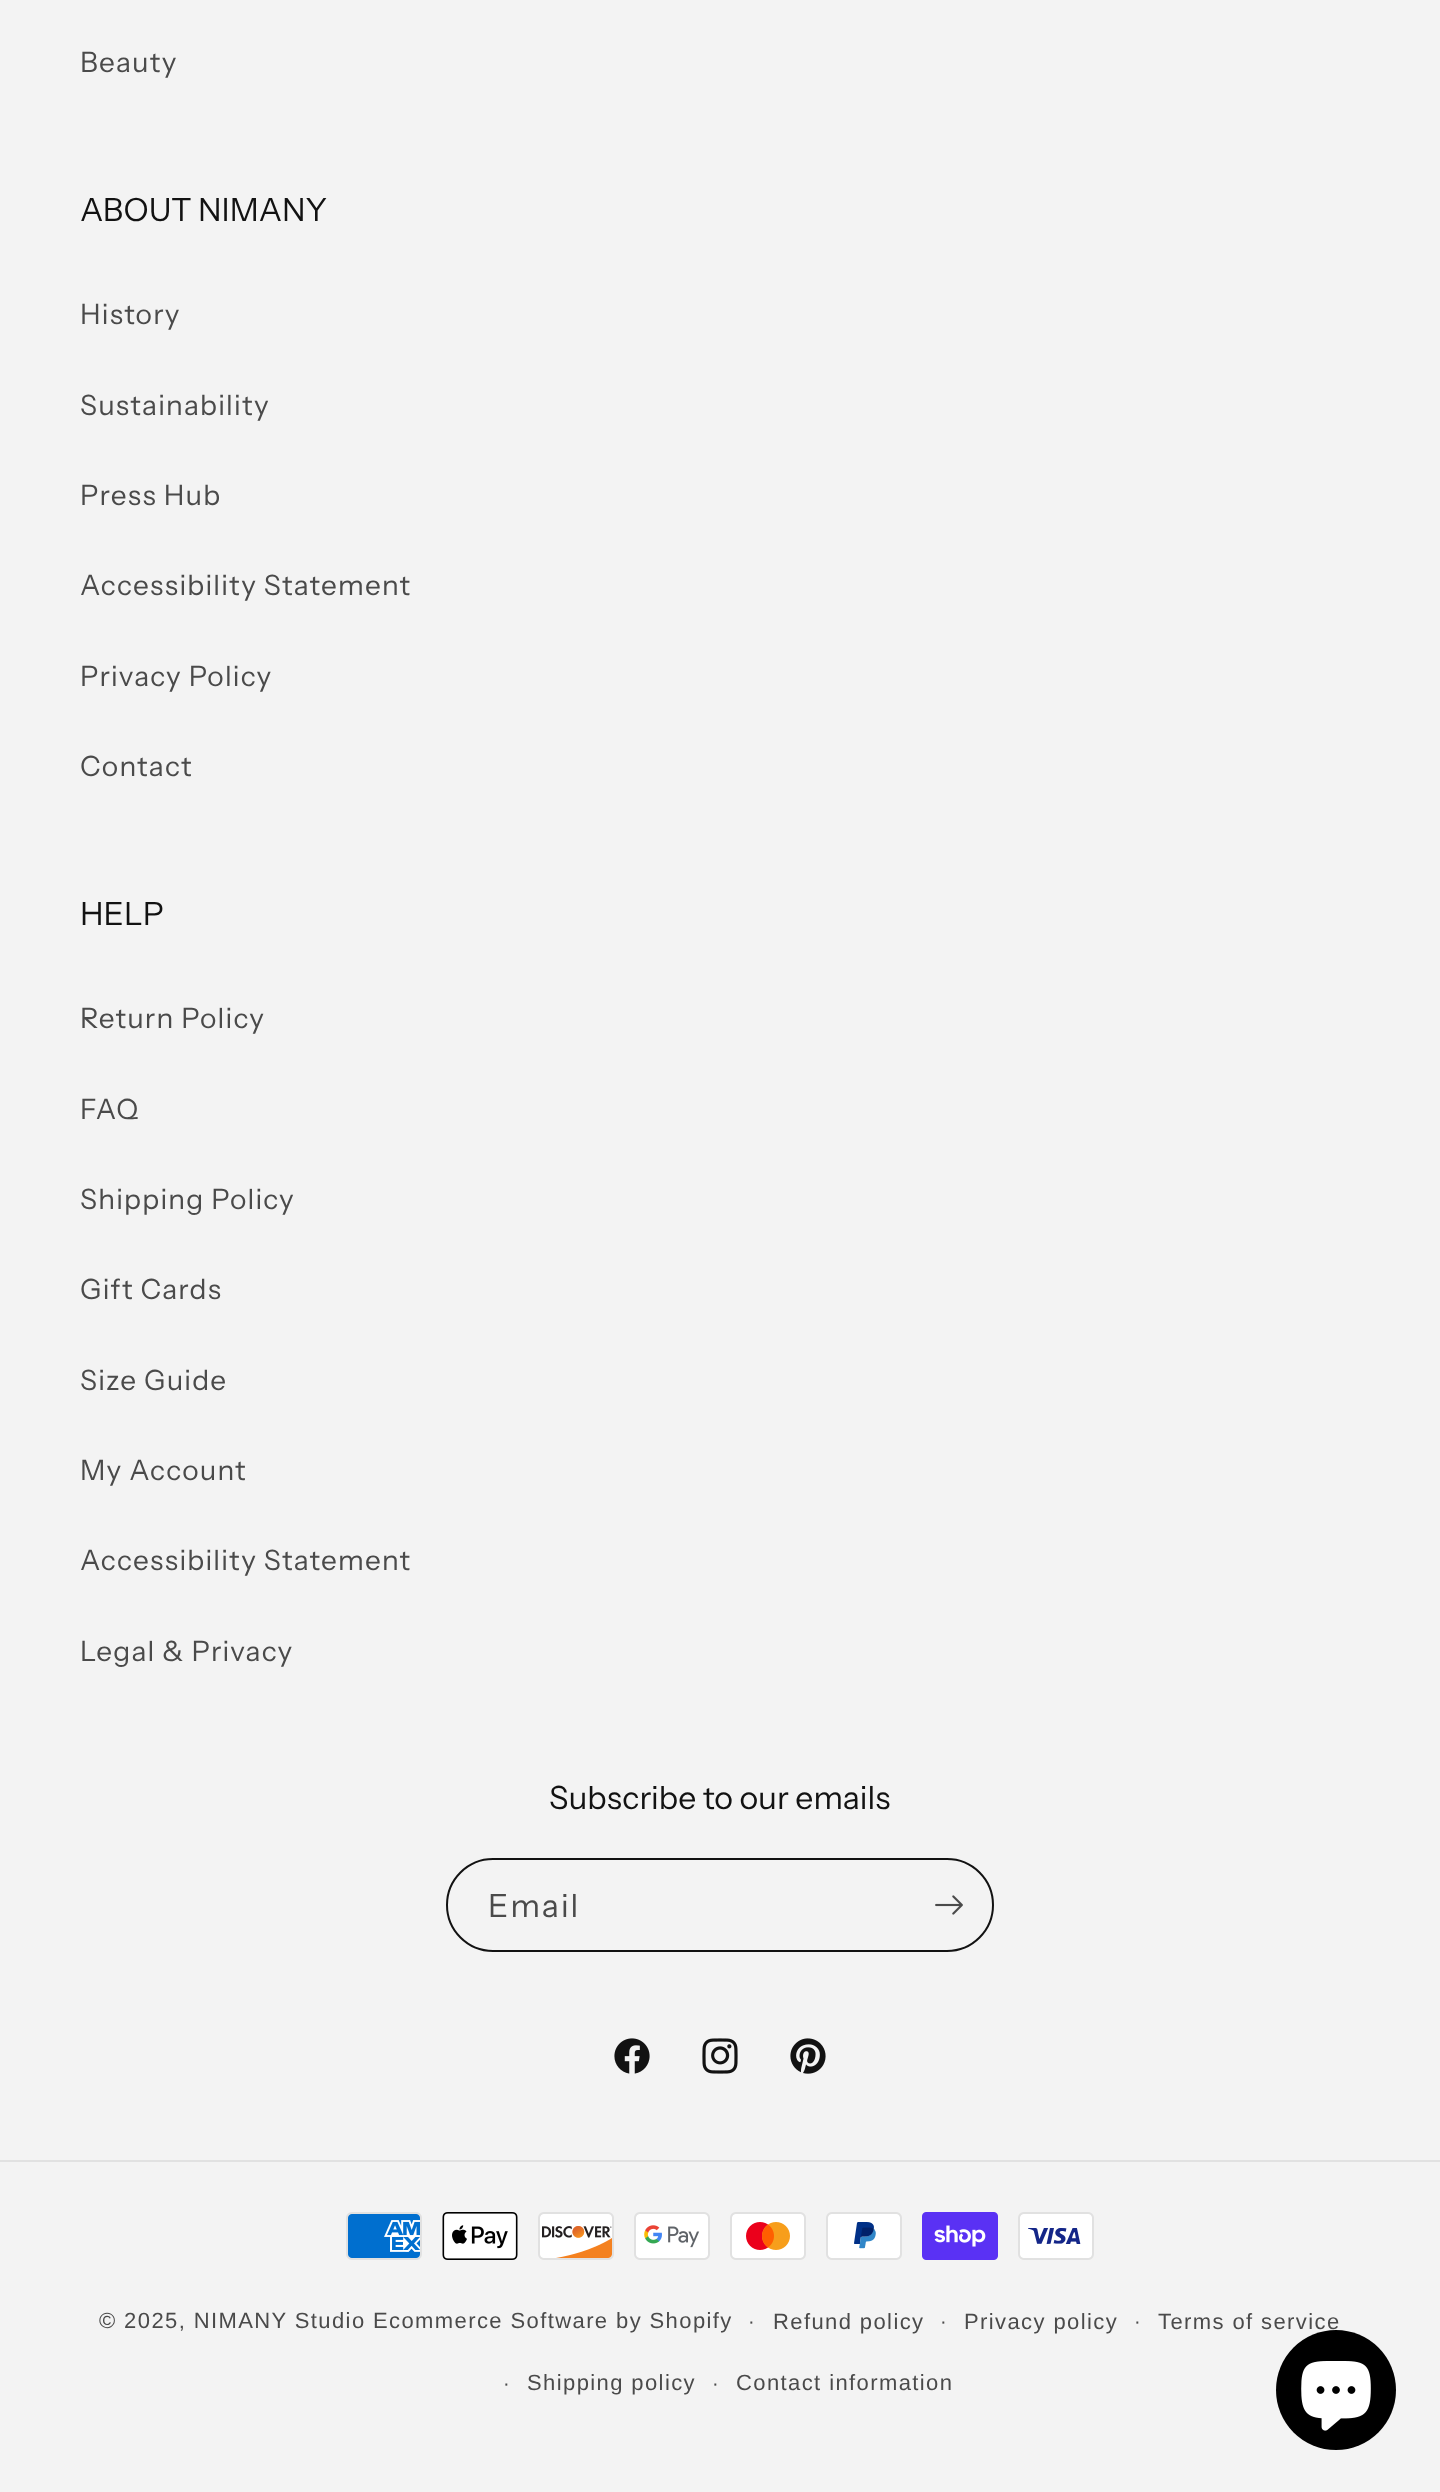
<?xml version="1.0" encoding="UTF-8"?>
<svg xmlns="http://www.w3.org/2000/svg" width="1440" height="2492">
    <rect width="100%" height="100%" fill="#F3F3F3"/>
    <text x="80" y="72" font-family="Instrument Sans" font-size="28" letter-spacing="1.2" fill="#4A4A4A">Beauty</text>
    <text x="80" y="221" font-family="Instrument Sans" font-size="32" fill="#121212">ABOUT NIMANY</text>
    <text x="80" y="324" font-family="Instrument Sans" font-size="28" letter-spacing="1.2" fill="#4A4A4A">History</text>
    <text x="80" y="415" font-family="Instrument Sans" font-size="28" letter-spacing="1.2" fill="#4A4A4A">Sustainability</text>
    <text x="80" y="505" font-family="Instrument Sans" font-size="28" letter-spacing="1.2" fill="#4A4A4A">Press Hub</text>
    <text x="80" y="595" font-family="Instrument Sans" font-size="28" letter-spacing="1.2" fill="#4A4A4A">Accessibility Statement</text>
    <text x="80" y="686" font-family="Instrument Sans" font-size="28" letter-spacing="1.2" fill="#4A4A4A">Privacy Policy</text>
    <text x="80" y="776" font-family="Instrument Sans" font-size="28" letter-spacing="1.2" fill="#4A4A4A">Contact</text>
    <text x="80" y="925" font-family="Instrument Sans" font-size="32" fill="#121212">HELP</text>
    <text x="80" y="1028" font-family="Instrument Sans" font-size="28" letter-spacing="1.2" fill="#4A4A4A">Return Policy</text>
    <text x="80" y="1119" font-family="Instrument Sans" font-size="28" letter-spacing="1.2" fill="#4A4A4A">FAQ</text>
    <text x="80" y="1209" font-family="Instrument Sans" font-size="28" letter-spacing="1.2" fill="#4A4A4A">Shipping Policy</text>
    <text x="80" y="1299" font-family="Instrument Sans" font-size="28" letter-spacing="1.2" fill="#4A4A4A">Gift Cards</text>
    <text x="80" y="1390" font-family="Instrument Sans" font-size="28" letter-spacing="1.2" fill="#4A4A4A">Size Guide</text>
    <text x="80" y="1480" font-family="Instrument Sans" font-size="28" letter-spacing="1.2" fill="#4A4A4A">My Account</text>
    <text x="80" y="1570" font-family="Instrument Sans" font-size="28" letter-spacing="1.2" fill="#4A4A4A">Accessibility Statement</text>
    <text x="80" y="1661" font-family="Instrument Sans" font-size="28" letter-spacing="1.2" fill="#4A4A4A">Legal &amp; Privacy</text>
    <text x="549" y="1809" font-family="Instrument Sans" font-size="32" fill="#121212">Subscribe to our emails</text>
    <rect x="447" y="1859" width="546" height="92" rx="46" fill="none" stroke="#121212" stroke-width="2"/>
    <text x="488" y="1917" font-family="Instrument Sans" font-size="32" letter-spacing="2" fill="#4A4A4A">Email</text>
    <image x="935" y="1895" width="28" height="20" href="img_01.png"/>
    <image x="614" y="2038" width="36" height="36" href="img_02.png"/>
    <image x="702" y="2038" width="36" height="36" href="img_03.png"/>
    <image x="790" y="2038" width="36" height="36" href="img_04.png"/>
    <rect x="0" y="2160" width="1440" height="2" fill="#E1E1E1"/>
    <image x="346" y="2212" width="76" height="48" href="img_05.png"/>
    <image x="442" y="2212" width="76" height="48" href="img_06.png"/>
    <image x="538" y="2212" width="76" height="48" href="img_07.png"/>
    <image x="634" y="2212" width="76" height="48" href="img_08.png"/>
    <image x="730" y="2212" width="76" height="48" href="img_09.png"/>
    <image x="826" y="2212" width="76" height="48" href="img_10.png"/>
    <image x="922" y="2212" width="76" height="48" href="img_11.png"/>
    <image x="1018" y="2212" width="76" height="48" href="img_12.png"/>
    <text x="99" y="2328" font-family="Liberation Sans" font-size="22" letter-spacing="1.4" fill="#4A4A4A">© 2025, NIMANY Studio</text>
    <text x="373" y="2328" font-family="Liberation Sans" font-size="22" letter-spacing="1.4" fill="#4A4A4A">Ecommerce Software by Shopify</text>
    <text x="748" y="2328" font-family="Liberation Sans" font-size="20" letter-spacing="1.4" fill="#4A4A4A">·</text>
    <text x="773" y="2329" font-family="Liberation Sans" font-size="22" letter-spacing="1.4" fill="#4A4A4A">Refund policy</text>
    <text x="940" y="2328" font-family="Liberation Sans" font-size="20" letter-spacing="1.4" fill="#4A4A4A">·</text>
    <text x="964" y="2329" font-family="Liberation Sans" font-size="22" letter-spacing="1.4" fill="#4A4A4A">Privacy policy</text>
    <text x="1134" y="2328" font-family="Liberation Sans" font-size="20" letter-spacing="1.4" fill="#4A4A4A">·</text>
    <text x="1158" y="2329" font-family="Liberation Sans" font-size="22" letter-spacing="1.4" fill="#4A4A4A">Terms of service</text>
    <text x="503" y="2390" font-family="Liberation Sans" font-size="20" letter-spacing="1.4" fill="#4A4A4A">·</text>
    <text x="527" y="2390" font-family="Liberation Sans" font-size="22" letter-spacing="1.4" fill="#4A4A4A">Shipping policy</text>
    <text x="712" y="2390" font-family="Liberation Sans" font-size="20" letter-spacing="1.4" fill="#4A4A4A">·</text>
    <text x="736" y="2390" font-family="Liberation Sans" font-size="22" letter-spacing="1.4" fill="#4A4A4A">Contact information</text>
    <circle cx="1336" cy="2390" r="60" fill="#000000"/>
    <image x="1301" y="2361" width="70" height="70" href="img_13.png"/>
</svg>
